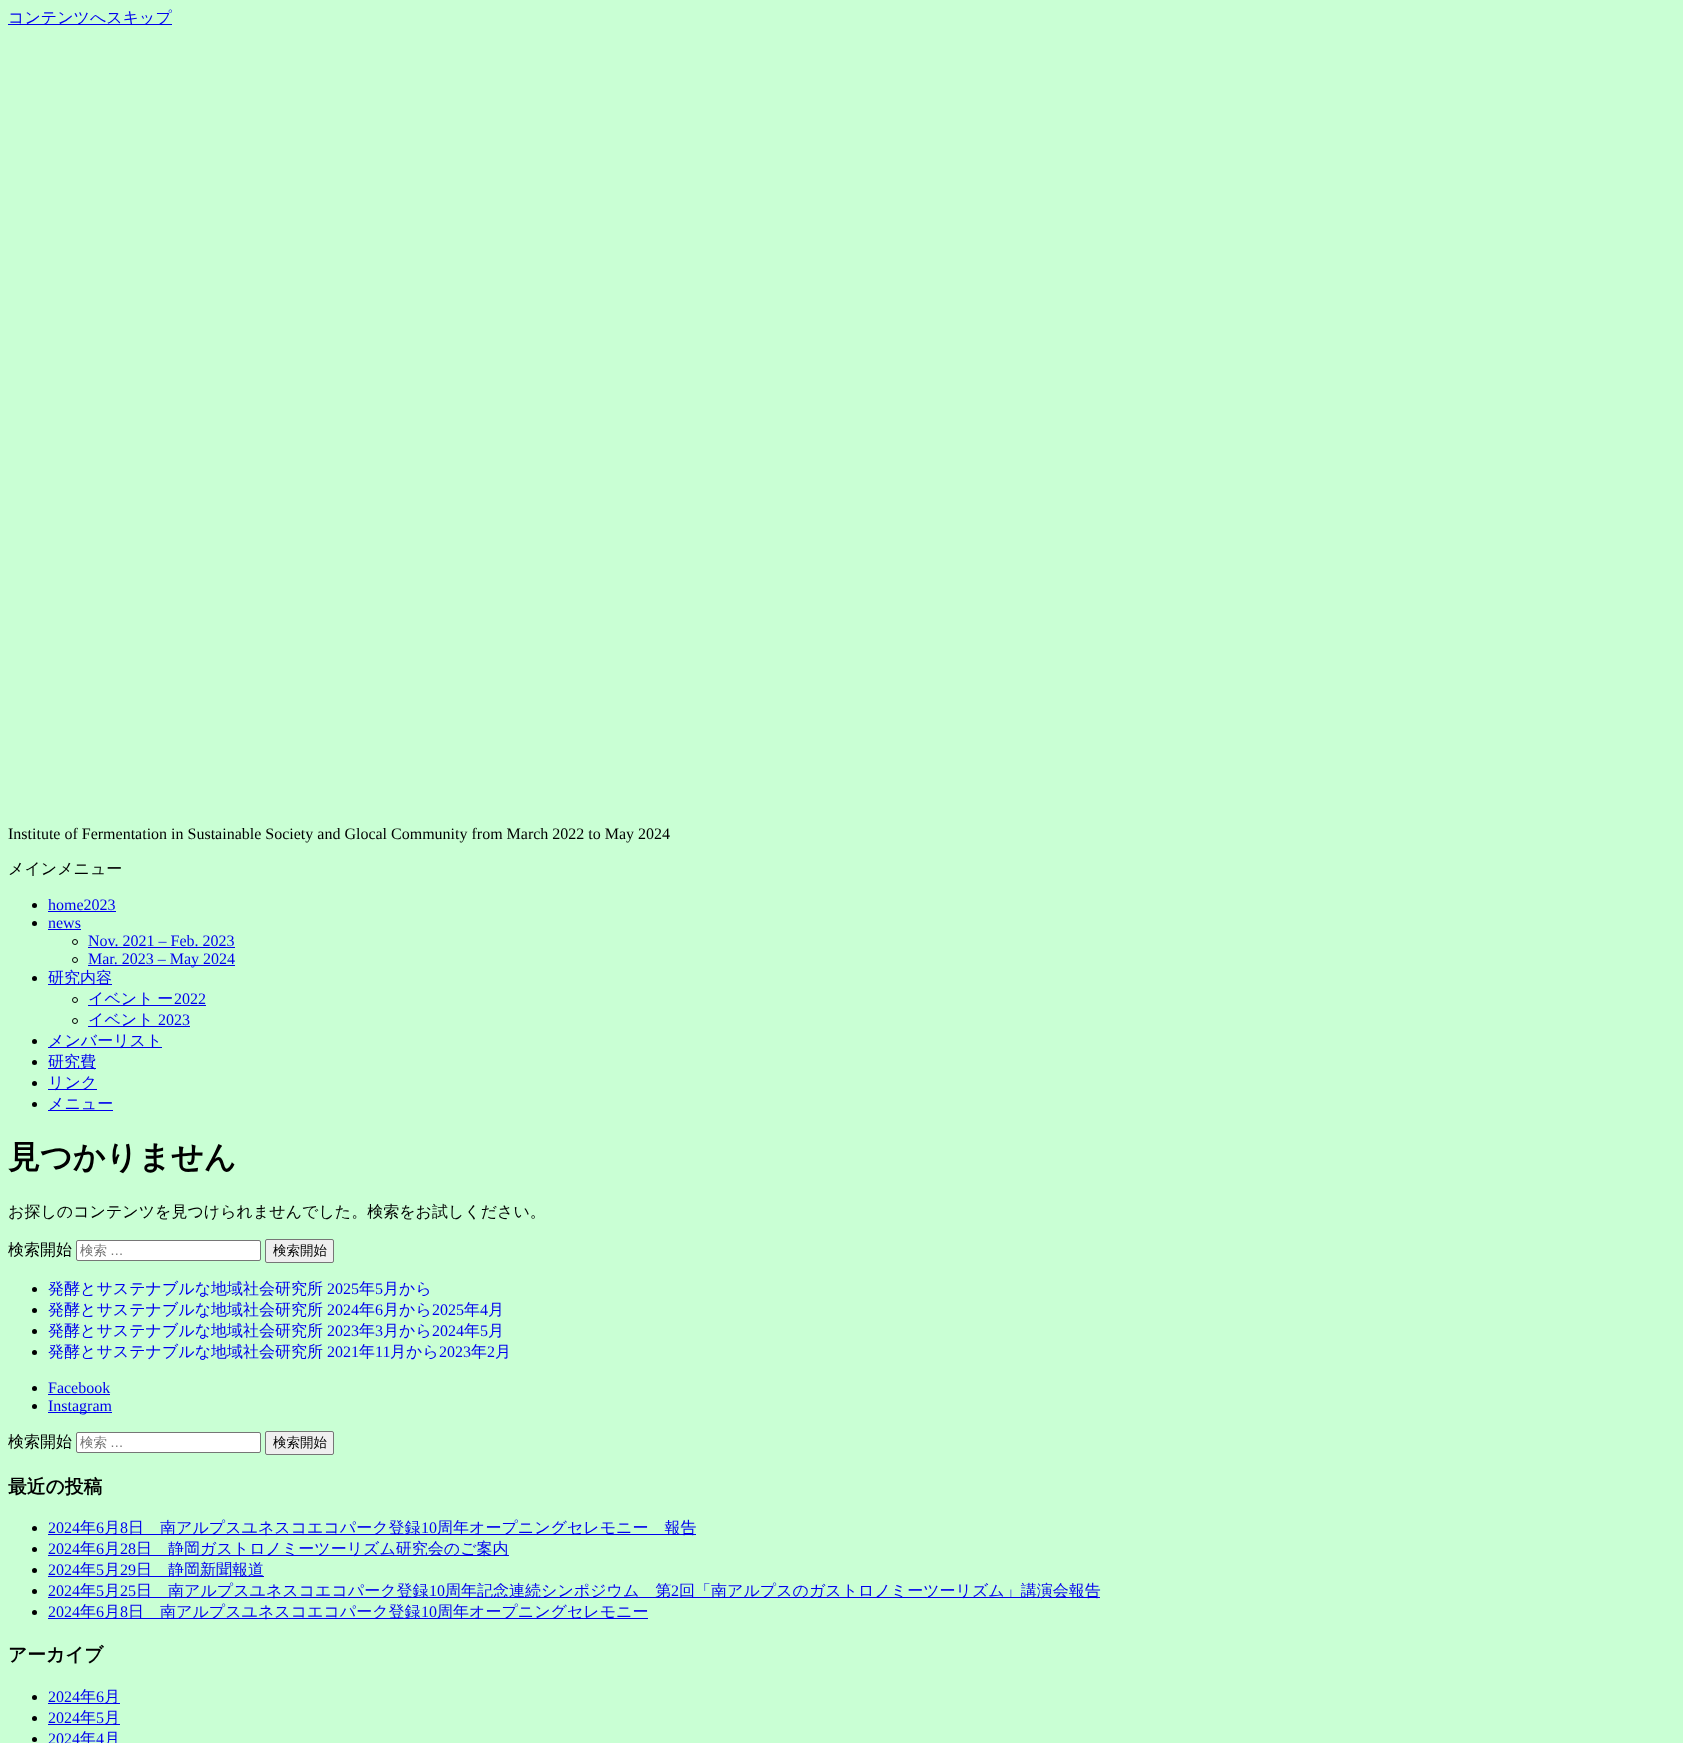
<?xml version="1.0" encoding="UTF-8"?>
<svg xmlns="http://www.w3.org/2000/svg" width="1683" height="1743">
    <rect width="100%" height="100%" fill="#C9FFD4"/>
    <rect x="8" y="24" width="164" height="1" fill="#0000EE"/>
    <text x="8" y="23" font-family="WenQuanYi Zen Hei" font-size="16" font-weight="500" fill="#0000EE">コンテンツへスキップ</text>
    <text x="8" y="839" font-family="Liberation Serif" font-size="16" fill="#000000">Institute of Fermentation in Sustainable Society and Glocal Community from March 2022 to May 2024</text>
    <text x="8" y="874" font-family="WenQuanYi Zen Hei" font-size="16" font-weight="500" fill="#000000">メインメニュー</text>
    <circle cx="34.5" cy="905.5" r="2.5" fill="#000000"/>
    <text x="48" y="910" font-family="Liberation Serif" font-size="16" fill="#0000EE">home2023</text>
    <rect x="48" y="911" width="68" height="1" fill="#0000EE"/>
    <circle cx="34.5" cy="923.5" r="2.5" fill="#000000"/>
    <text x="48" y="928" font-family="Liberation Serif" font-size="16" fill="#0000EE">news</text>
    <rect x="48" y="929" width="33" height="1" fill="#0000EE"/>
    <circle cx="75" cy="942" r="2.5" fill="none" stroke="#000000"/>
    <text x="88" y="946" font-family="Liberation Serif" font-size="16" fill="#0000EE">Nov. 2021 – Feb. 2023</text>
    <rect x="88" y="947" width="147" height="1" fill="#0000EE"/>
    <circle cx="75" cy="960" r="2.5" fill="none" stroke="#000000"/>
    <rect x="88" y="965" width="147" height="1" fill="#0000EE"/>
    <text x="88" y="964" font-family="Liberation Serif" font-size="16" fill="#0000EE">Mar. 2023 – May 2024</text>
    <circle cx="34.5" cy="978.5" r="2.5" fill="#000000"/>
    <rect x="48" y="984" width="64" height="1" fill="#0000EE"/>
    <text x="48" y="983" font-family="WenQuanYi Zen Hei" font-size="16" font-weight="500" fill="#0000EE">研究内容</text>
    <circle cx="75" cy="1000" r="2.5" fill="none" stroke="#000000"/>
    <rect x="88" y="1005" width="118" height="1" fill="#0000EE"/>
    <text x="88" y="1004" word-spacing="-1" font-family="WenQuanYi Zen Hei" font-size="16" font-weight="500" fill="#0000EE">イベント ー</text>
    <text x="174" y="1004" font-family="Liberation Serif" font-size="16" fill="#0000EE">2022</text>
    <circle cx="75" cy="1021" r="2.5" fill="none" stroke="#000000"/>
    <rect x="88" y="1026" width="102" height="1" fill="#0000EE"/>
    <text x="88" y="1025" font-family="WenQuanYi Zen Hei" font-size="16" font-weight="500" fill="#0000EE">イベント</text>
    <text x="158" y="1025" font-family="Liberation Serif" font-size="16" fill="#0000EE">2023</text>
    <circle cx="34.5" cy="1041.5" r="2.5" fill="#000000"/>
    <rect x="48" y="1047" width="114" height="1" fill="#0000EE"/>
    <text x="48" y="1046" font-family="WenQuanYi Zen Hei" font-size="16" font-weight="500" fill="#0000EE">メンバーリスト</text>
    <circle cx="34.5" cy="1062.5" r="2.5" fill="#000000"/>
    <rect x="48" y="1068" width="48" height="1" fill="#0000EE"/>
    <text x="48" y="1067" font-family="WenQuanYi Zen Hei" font-size="16" font-weight="500" fill="#0000EE">研究費</text>
    <circle cx="34.5" cy="1083.5" r="2.5" fill="#000000"/>
    <rect x="48" y="1089" width="49" height="1" fill="#0000EE"/>
    <text x="48" y="1088" font-family="WenQuanYi Zen Hei" font-size="16" font-weight="500" fill="#0000EE">リンク</text>
    <circle cx="34.5" cy="1104.5" r="2.5" fill="#000000"/>
    <text x="48" y="1109" font-family="WenQuanYi Zen Hei" font-size="16" font-weight="500" fill="#0000EE">メニュー</text>
    <rect x="48" y="1110" width="65" height="1" fill="#0000EE"/>
    <text x="8" y="1168" font-family="WenQuanYi Zen Hei" font-size="32" font-weight="700" fill="#000000">見つかりません</text>
    <text x="8" y="1217" font-family="WenQuanYi Zen Hei" font-size="16" font-weight="500" fill="#000000">お探しのコンテンツを見つけられませんでした。検索をお試しください。</text>
    <text x="8" y="1255" font-family="WenQuanYi Zen Hei" font-size="16" font-weight="500" fill="#000000">検索開始</text>
    <rect x="76.5" y="1240.5" width="184" height="20" rx="1.5" fill="#FFFFFF" stroke="#767676"/>
    <text x="80" y="1255" font-family="WenQuanYi Zen Hei" font-size="13.5" font-weight="500" fill="#757575">検索</text>
    <text x="110" y="1255" font-family="Liberation Sans" font-size="13.5" fill="#757575">…</text>
    <rect x="265.5" y="1239.5" width="68" height="23" rx="1.5" fill="#EFEFEF" stroke="#767676"/>
    <text x="273" y="1255" font-family="WenQuanYi Zen Hei" font-size="13.5" font-weight="500" fill="#000000">検索開始</text>
    <circle cx="34.5" cy="1289.5" r="2.5" fill="#000000"/>
    <text x="48" y="1294" font-family="WenQuanYi Zen Hei" font-size="16" font-weight="500" fill="#0000EE">発酵とサステナブルな地域社会研究所</text>
    <text x="327" y="1294" font-family="Liberation Serif" font-size="16" fill="#0000EE">2025</text>
    <text x="359" y="1294" font-family="WenQuanYi Zen Hei" font-size="16" font-weight="500" fill="#0000EE">年</text>
    <text x="375" y="1294" font-family="Liberation Serif" font-size="16" fill="#0000EE">5</text>
    <text x="383" y="1294" font-family="WenQuanYi Zen Hei" font-size="16" font-weight="500" fill="#0000EE">月から</text>
    <circle cx="34.5" cy="1310.5" r="2.5" fill="#000000"/>
    <text x="48" y="1315" font-family="WenQuanYi Zen Hei" font-size="16" font-weight="500" fill="#0000EE">発酵とサステナブルな地域社会研究所</text>
    <text x="327" y="1315" font-family="Liberation Serif" font-size="16" fill="#0000EE">2024</text>
    <text x="359" y="1315" font-family="WenQuanYi Zen Hei" font-size="16" font-weight="500" fill="#0000EE">年</text>
    <text x="375" y="1315" font-family="Liberation Serif" font-size="16" fill="#0000EE">6</text>
    <text x="383" y="1315" font-family="WenQuanYi Zen Hei" font-size="16" font-weight="500" fill="#0000EE">月から</text>
    <text x="432" y="1315" font-family="Liberation Serif" font-size="16" fill="#0000EE">2025</text>
    <text x="464" y="1315" font-family="WenQuanYi Zen Hei" font-size="16" font-weight="500" fill="#0000EE">年</text>
    <text x="480" y="1315" font-family="Liberation Serif" font-size="16" fill="#0000EE">4</text>
    <text x="488" y="1315" font-family="WenQuanYi Zen Hei" font-size="16" font-weight="500" fill="#0000EE">月</text>
    <circle cx="34.5" cy="1331.5" r="2.5" fill="#000000"/>
    <text x="48" y="1336" font-family="WenQuanYi Zen Hei" font-size="16" font-weight="500" fill="#0000EE">発酵とサステナブルな地域社会研究所</text>
    <text x="327" y="1336" font-family="Liberation Serif" font-size="16" fill="#0000EE">2023</text>
    <text x="359" y="1336" font-family="WenQuanYi Zen Hei" font-size="16" font-weight="500" fill="#0000EE">年</text>
    <text x="375" y="1336" font-family="Liberation Serif" font-size="16" fill="#0000EE">3</text>
    <text x="383" y="1336" font-family="WenQuanYi Zen Hei" font-size="16" font-weight="500" fill="#0000EE">月から</text>
    <text x="432" y="1336" font-family="Liberation Serif" font-size="16" fill="#0000EE">2024</text>
    <text x="464" y="1336" font-family="WenQuanYi Zen Hei" font-size="16" font-weight="500" fill="#0000EE">年</text>
    <text x="480" y="1336" font-family="Liberation Serif" font-size="16" fill="#0000EE">5</text>
    <text x="488" y="1336" font-family="WenQuanYi Zen Hei" font-size="16" font-weight="500" fill="#0000EE">月</text>
    <circle cx="34.5" cy="1352.5" r="2.5" fill="#000000"/>
    <text x="48" y="1357" font-family="WenQuanYi Zen Hei" font-size="16" font-weight="500" fill="#0000EE">発酵とサステナブルな地域社会研究所</text>
    <text x="327" y="1357" font-family="Liberation Serif" font-size="16" fill="#0000EE">2021</text>
    <text x="359" y="1357" font-family="WenQuanYi Zen Hei" font-size="16" font-weight="500" fill="#0000EE">年</text>
    <text x="375" y="1357" font-family="Liberation Serif" font-size="16" fill="#0000EE">11</text>
    <text x="390" y="1357" font-family="WenQuanYi Zen Hei" font-size="16" font-weight="500" fill="#0000EE">月から</text>
    <text x="439" y="1357" font-family="Liberation Serif" font-size="16" fill="#0000EE">2023</text>
    <text x="471" y="1357" font-family="WenQuanYi Zen Hei" font-size="16" font-weight="500" fill="#0000EE">年</text>
    <text x="487" y="1357" font-family="Liberation Serif" font-size="16" fill="#0000EE">2</text>
    <text x="495" y="1357" font-family="WenQuanYi Zen Hei" font-size="16" font-weight="500" fill="#0000EE">月</text>
    <circle cx="34.5" cy="1388.5" r="2.5" fill="#000000"/>
    <text x="48" y="1393" font-family="Liberation Serif" font-size="16" fill="#0000EE">Facebook</text>
    <rect x="48" y="1394" width="62" height="1" fill="#0000EE"/>
    <circle cx="34.5" cy="1406.5" r="2.5" fill="#000000"/>
    <rect x="48" y="1412" width="64" height="1" fill="#0000EE"/>
    <text x="48" y="1411" font-family="Liberation Serif" font-size="16" fill="#0000EE">Instagram</text>
    <text x="8" y="1447" font-family="WenQuanYi Zen Hei" font-size="16" font-weight="500" fill="#000000">検索開始</text>
    <rect x="76.5" y="1432.5" width="184" height="20" rx="1.5" fill="#FFFFFF" stroke="#767676"/>
    <text x="80" y="1447" font-family="WenQuanYi Zen Hei" font-size="13.5" font-weight="500" fill="#757575">検索</text>
    <text x="110" y="1447" font-family="Liberation Sans" font-size="13.5" fill="#757575">…</text>
    <rect x="265.5" y="1431.5" width="68" height="23" rx="1.5" fill="#EFEFEF" stroke="#767676"/>
    <text x="273" y="1447" font-family="WenQuanYi Zen Hei" font-size="13.5" font-weight="500" fill="#000000">検索開始</text>
    <text x="8" y="1493" font-family="WenQuanYi Zen Hei" font-size="18.75" font-weight="700" fill="#000000">最近の投稿</text>
    <circle cx="34.5" cy="1528.5" r="2.5" fill="#000000"/>
    <text x="48" y="1533" font-family="Liberation Serif" font-size="16" fill="#0000EE">2024</text>
    <rect x="48" y="1534" width="648" height="1" fill="#0000EE"/>
    <text x="80" y="1533" font-family="WenQuanYi Zen Hei" font-size="16" font-weight="500" fill="#0000EE">年</text>
    <text x="96" y="1533" font-family="Liberation Serif" font-size="16" fill="#0000EE">6</text>
    <text x="104" y="1533" font-family="WenQuanYi Zen Hei" font-size="16" font-weight="500" fill="#0000EE">月</text>
    <text x="120" y="1533" font-family="Liberation Serif" font-size="16" fill="#0000EE">8</text>
    <text x="128" y="1533" font-family="WenQuanYi Zen Hei" font-size="16" font-weight="500" fill="#0000EE">日　南アルプスユネスコエコパーク登録</text>
    <text x="421" y="1533" font-family="Liberation Serif" font-size="16" fill="#0000EE">10</text>
    <text x="437" y="1533" font-family="WenQuanYi Zen Hei" font-size="16" font-weight="500" fill="#0000EE">周年オープニングセレモニー　報告</text>
    <circle cx="34.5" cy="1549.5" r="2.5" fill="#000000"/>
    <text x="48" y="1554" font-family="Liberation Serif" font-size="16" fill="#0000EE">2024</text>
    <rect x="48" y="1555" width="461" height="1" fill="#0000EE"/>
    <text x="80" y="1554" font-family="WenQuanYi Zen Hei" font-size="16" font-weight="500" fill="#0000EE">年</text>
    <text x="96" y="1554" font-family="Liberation Serif" font-size="16" fill="#0000EE">6</text>
    <text x="104" y="1554" font-family="WenQuanYi Zen Hei" font-size="16" font-weight="500" fill="#0000EE">月</text>
    <text x="120" y="1554" font-family="Liberation Serif" font-size="16" fill="#0000EE">28</text>
    <text x="136" y="1554" font-family="WenQuanYi Zen Hei" font-size="16" font-weight="500" fill="#0000EE">日　静岡ガストロノミーツーリズム研究会のご案内</text>
    <circle cx="34.5" cy="1570.5" r="2.5" fill="#000000"/>
    <text x="48" y="1575" font-family="Liberation Serif" font-size="16" fill="#0000EE">2024</text>
    <rect x="48" y="1576" width="216" height="1" fill="#0000EE"/>
    <text x="80" y="1575" font-family="WenQuanYi Zen Hei" font-size="16" font-weight="500" fill="#0000EE">年</text>
    <text x="96" y="1575" font-family="Liberation Serif" font-size="16" fill="#0000EE">5</text>
    <text x="104" y="1575" font-family="WenQuanYi Zen Hei" font-size="16" font-weight="500" fill="#0000EE">月</text>
    <text x="120" y="1575" font-family="Liberation Serif" font-size="16" fill="#0000EE">29</text>
    <text x="136" y="1575" font-family="WenQuanYi Zen Hei" font-size="16" font-weight="500" fill="#0000EE">日　静岡新聞報道</text>
    <circle cx="34.5" cy="1591.5" r="2.5" fill="#000000"/>
    <text x="48" y="1596" font-family="Liberation Serif" font-size="16" fill="#0000EE">2024</text>
    <rect x="48" y="1597" width="1052" height="1" fill="#0000EE"/>
    <text x="80" y="1596" font-family="WenQuanYi Zen Hei" font-size="16" font-weight="500" fill="#0000EE">年</text>
    <text x="96" y="1596" font-family="Liberation Serif" font-size="16" fill="#0000EE">5</text>
    <text x="104" y="1596" font-family="WenQuanYi Zen Hei" font-size="16" font-weight="500" fill="#0000EE">月</text>
    <text x="120" y="1596" font-family="Liberation Serif" font-size="16" fill="#0000EE">25</text>
    <text x="136" y="1596" font-family="WenQuanYi Zen Hei" font-size="16" font-weight="500" fill="#0000EE">日　南アルプスユネスコエコパーク登録</text>
    <text x="429" y="1596" font-family="Liberation Serif" font-size="16" fill="#0000EE">10</text>
    <text x="445" y="1596" font-family="WenQuanYi Zen Hei" font-size="16" font-weight="500" fill="#0000EE">周年記念連続シンポジウム　第</text>
    <text x="671" y="1596" font-family="Liberation Serif" font-size="16" fill="#0000EE">2</text>
    <text x="679" y="1596" font-family="WenQuanYi Zen Hei" font-size="16" font-weight="500" fill="#0000EE">回「南アルプスのガストロノミーツーリズム」講演会報告</text>
    <circle cx="34.5" cy="1612.5" r="2.5" fill="#000000"/>
    <text x="48" y="1617" font-family="Liberation Serif" font-size="16" fill="#0000EE">2024</text>
    <rect x="48" y="1618" width="600" height="1" fill="#0000EE"/>
    <text x="80" y="1617" font-family="WenQuanYi Zen Hei" font-size="16" font-weight="500" fill="#0000EE">年</text>
    <text x="96" y="1617" font-family="Liberation Serif" font-size="16" fill="#0000EE">6</text>
    <text x="104" y="1617" font-family="WenQuanYi Zen Hei" font-size="16" font-weight="500" fill="#0000EE">月</text>
    <text x="120" y="1617" font-family="Liberation Serif" font-size="16" fill="#0000EE">8</text>
    <text x="128" y="1617" font-family="WenQuanYi Zen Hei" font-size="16" font-weight="500" fill="#0000EE">日　南アルプスユネスコエコパーク登録</text>
    <text x="421" y="1617" font-family="Liberation Serif" font-size="16" fill="#0000EE">10</text>
    <text x="437" y="1617" font-family="WenQuanYi Zen Hei" font-size="16" font-weight="500" fill="#0000EE">周年オープニングセレモニー</text>
    <text x="8" y="1661" font-family="WenQuanYi Zen Hei" font-size="18.75" font-weight="700" fill="#000000">アーカイブ</text>
    <circle cx="34.5" cy="1697.5" r="2.5" fill="#000000"/>
    <text x="48" y="1702" font-family="Liberation Serif" font-size="16" fill="#0000EE">2024</text>
    <rect x="48" y="1703" width="72" height="1" fill="#0000EE"/>
    <text x="80" y="1702" font-family="WenQuanYi Zen Hei" font-size="16" font-weight="500" fill="#0000EE">年</text>
    <text x="96" y="1702" font-family="Liberation Serif" font-size="16" fill="#0000EE">6</text>
    <text x="104" y="1702" font-family="WenQuanYi Zen Hei" font-size="16" font-weight="500" fill="#0000EE">月</text>
    <circle cx="34.5" cy="1718.5" r="2.5" fill="#000000"/>
    <text x="48" y="1723" font-family="Liberation Serif" font-size="16" fill="#0000EE">2024</text>
    <rect x="48" y="1724" width="72" height="1" fill="#0000EE"/>
    <text x="80" y="1723" font-family="WenQuanYi Zen Hei" font-size="16" font-weight="500" fill="#0000EE">年</text>
    <text x="96" y="1723" font-family="Liberation Serif" font-size="16" fill="#0000EE">5</text>
    <text x="104" y="1723" font-family="WenQuanYi Zen Hei" font-size="16" font-weight="500" fill="#0000EE">月</text>
    <circle cx="34.5" cy="1739.5" r="2.5" fill="#000000"/>
    <text x="48" y="1744" font-family="Liberation Serif" font-size="16" fill="#0000EE">2024</text>
    <text x="80" y="1744" font-family="WenQuanYi Zen Hei" font-size="16" font-weight="500" fill="#0000EE">年</text>
    <text x="96" y="1744" font-family="Liberation Serif" font-size="16" fill="#0000EE">4</text>
    <text x="104" y="1744" font-family="WenQuanYi Zen Hei" font-size="16" font-weight="500" fill="#0000EE">月</text>
</svg>
